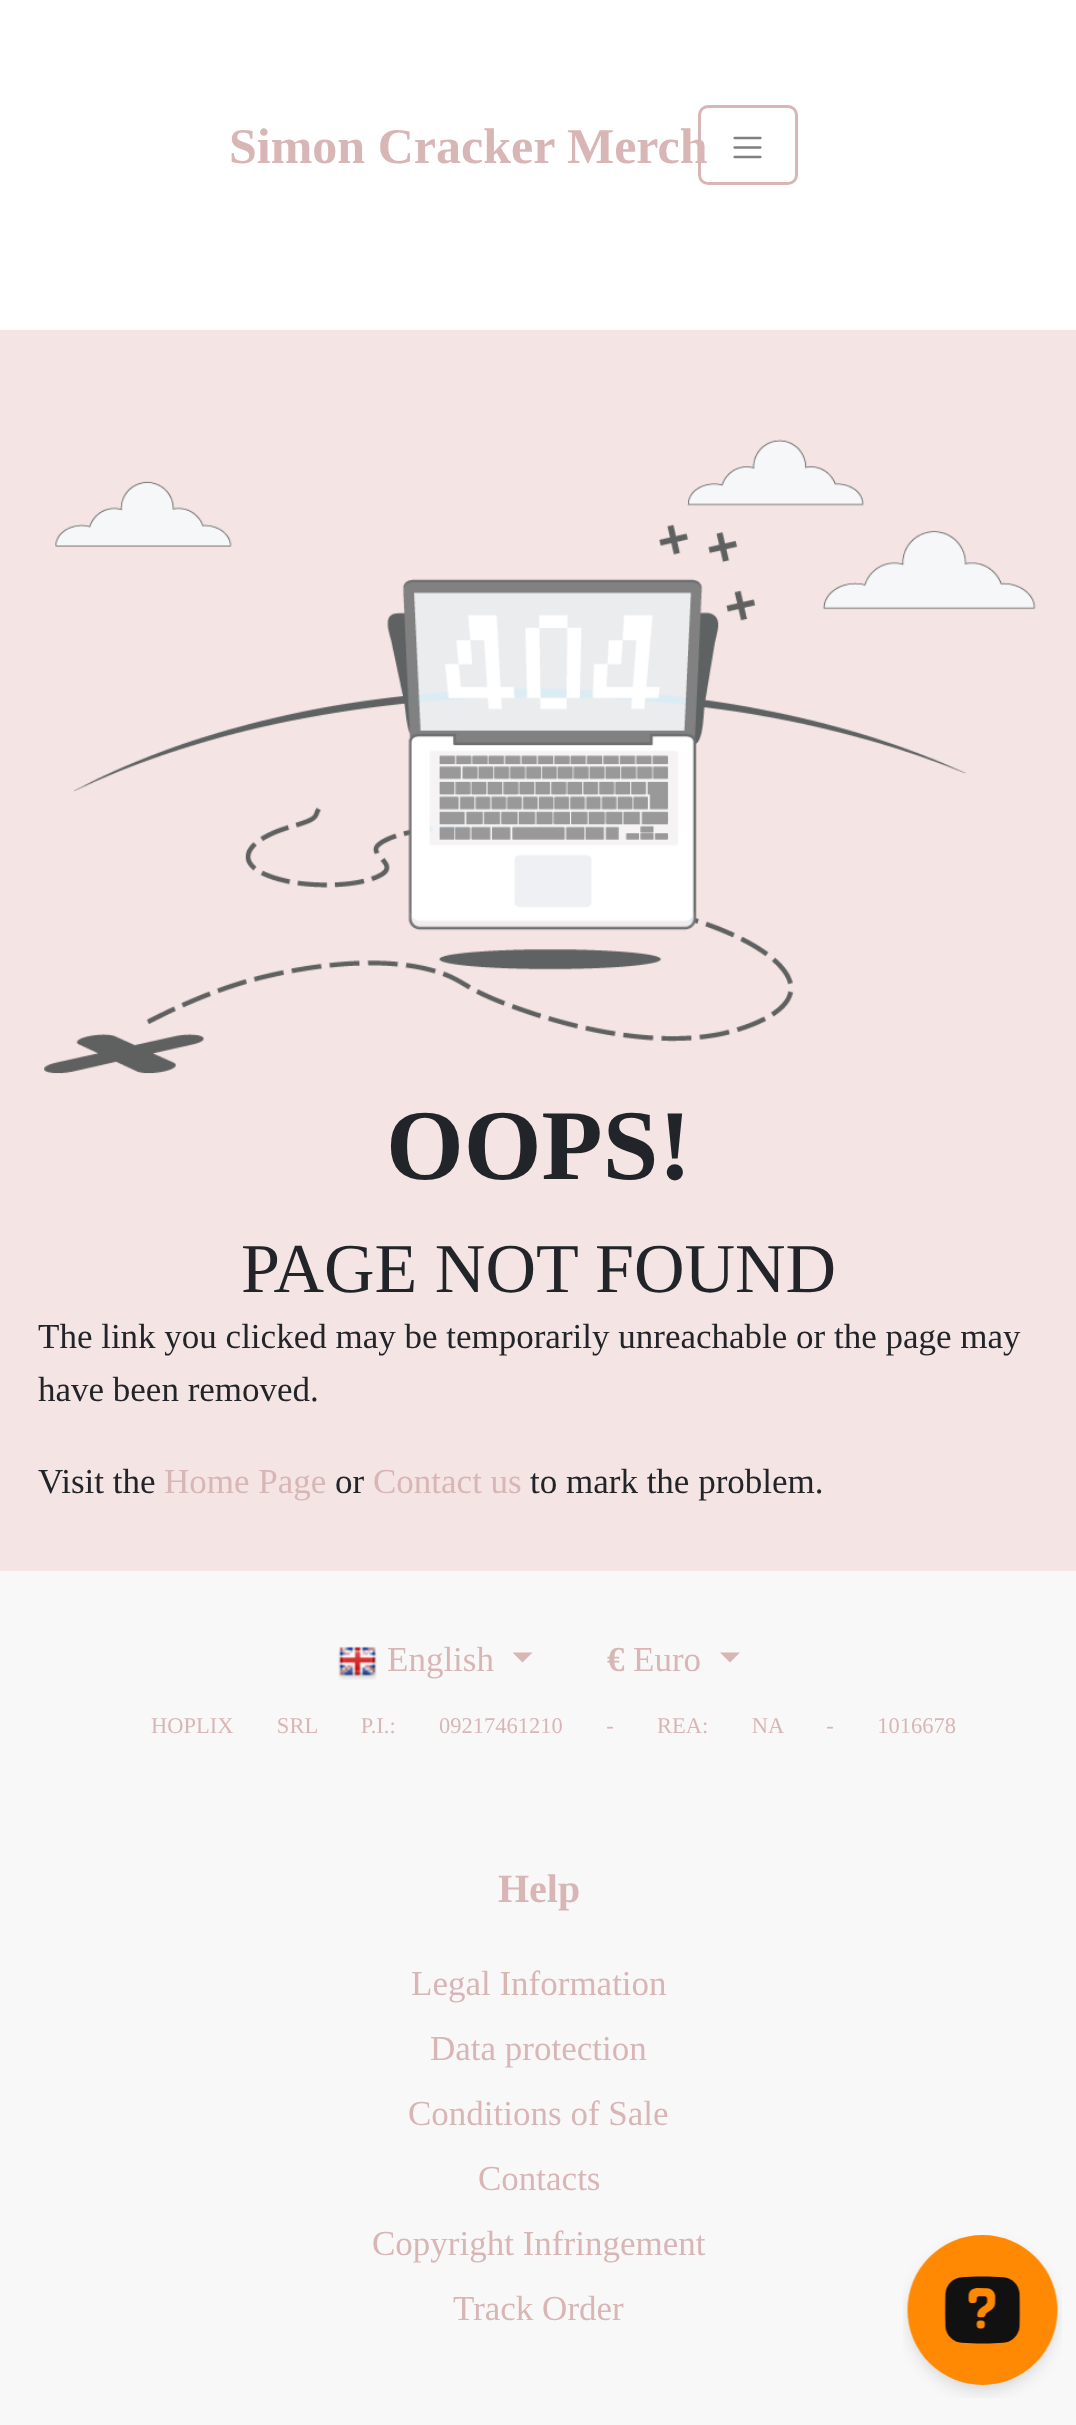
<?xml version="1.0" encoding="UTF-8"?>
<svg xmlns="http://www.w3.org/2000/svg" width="1076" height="2425">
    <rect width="100%" height="100%" fill="#FFFFFF"/>
    <text x="229" y="163" font-family="Liberation Serif" font-size="50" font-weight="700" fill="#D9B6B6">Simon Cracker Merch</text>
    <rect x="699.5" y="106.5" width="97" height="77" rx="8.5" fill="none" stroke="#D9B6B6" stroke-width="3"/>
    <path d="M 734.5 138 H 760.5 M 734.5 147.5 H 760.5 M 734.5 157 H 760.5" fill="none" stroke="#808080" stroke-width="2.3" stroke-linecap="round"/>
    <rect x="0" y="330" width="1076" height="1241" fill="#F5E4E4"/>
    <image x="44" y="439" width="992" height="635" href="img_01.png"/>
    <text x="386" y="1179" font-family="Liberation Serif" font-size="100" font-weight="700" fill="#212529">OOPS!</text>
    <text x="241" y="1292" font-family="Liberation Serif" font-size="70" fill="#212529">PAGE NOT FOUND</text>
    <text font-family="Liberation Serif" font-size="35" fill="#212529">
        <tspan x="38" y="1348">The link you clicked may be temporarily unreachable or the page may</tspan>
        <tspan x="38" y="1401">have been removed.</tspan>
    </text>
    <text x="38" y="1493" font-family="Liberation Serif" font-size="35" fill="#212529">Visit the</text>
    <text x="164" y="1493" font-family="Liberation Serif" font-size="35" fill="#D9B6B6">Home Page</text>
    <text x="335" y="1493" font-family="Liberation Serif" font-size="35" fill="#212529">or</text>
    <text x="373" y="1493" font-family="Liberation Serif" font-size="35" fill="#D9B6B6">Contact us</text>
    <text x="530" y="1493" font-family="Liberation Serif" font-size="35" fill="#212529">to mark the problem.</text>
    <rect x="0" y="1571" width="1076" height="854" fill="#F8F8F8"/>
    <image x="338" y="1646" width="39" height="34" href="img_02.png"/>
    <text x="387" y="1671" font-family="Liberation Serif" font-size="35" fill="#D9B6B6">English</text>
    <path d="M 512.5 1652.5 H 532.5 L 522.5 1662.5 Z" fill="#D9B6B6"/>
    <text x="607" y="1671" font-family="Liberation Serif" font-size="35" font-weight="700" fill="#D9B6B6">€</text>
    <text x="633" y="1671" font-family="Liberation Serif" font-size="35" fill="#D9B6B6">Euro</text>
    <path d="M 720 1652.5 H 740 L 730 1662.5 Z" fill="#D9B6B6"/>
    <text x="151" y="1733" word-spacing="37.75" font-family="Liberation Serif" font-size="22.5" fill="#D9B6B6">HOPLIX SRL P.I.: 09217461210 - REA: NA - 1016678</text>
    <text x="498" y="1902" font-family="Liberation Serif" font-size="40" font-weight="700" fill="#D9B6B6">Help</text>
    <text x="411" y="1995" font-family="Liberation Serif" font-size="35" fill="#D9B6B6">Legal Information</text>
    <text x="430" y="2060" font-family="Liberation Serif" font-size="35" fill="#D9B6B6">Data protection</text>
    <text x="408" y="2125" font-family="Liberation Serif" font-size="35" fill="#D9B6B6">Conditions of Sale</text>
    <text x="478" y="2190" font-family="Liberation Serif" font-size="35" fill="#D9B6B6">Contacts</text>
    <text x="372" y="2255" font-family="Liberation Serif" font-size="35" fill="#D9B6B6">Copyright Infringement</text>
    <text x="453" y="2320" font-family="Liberation Serif" font-size="35" fill="#D9B6B6">Track Order</text>
    <image x="903" y="2235" width="159" height="163" href="img_03.png"/>
</svg>
